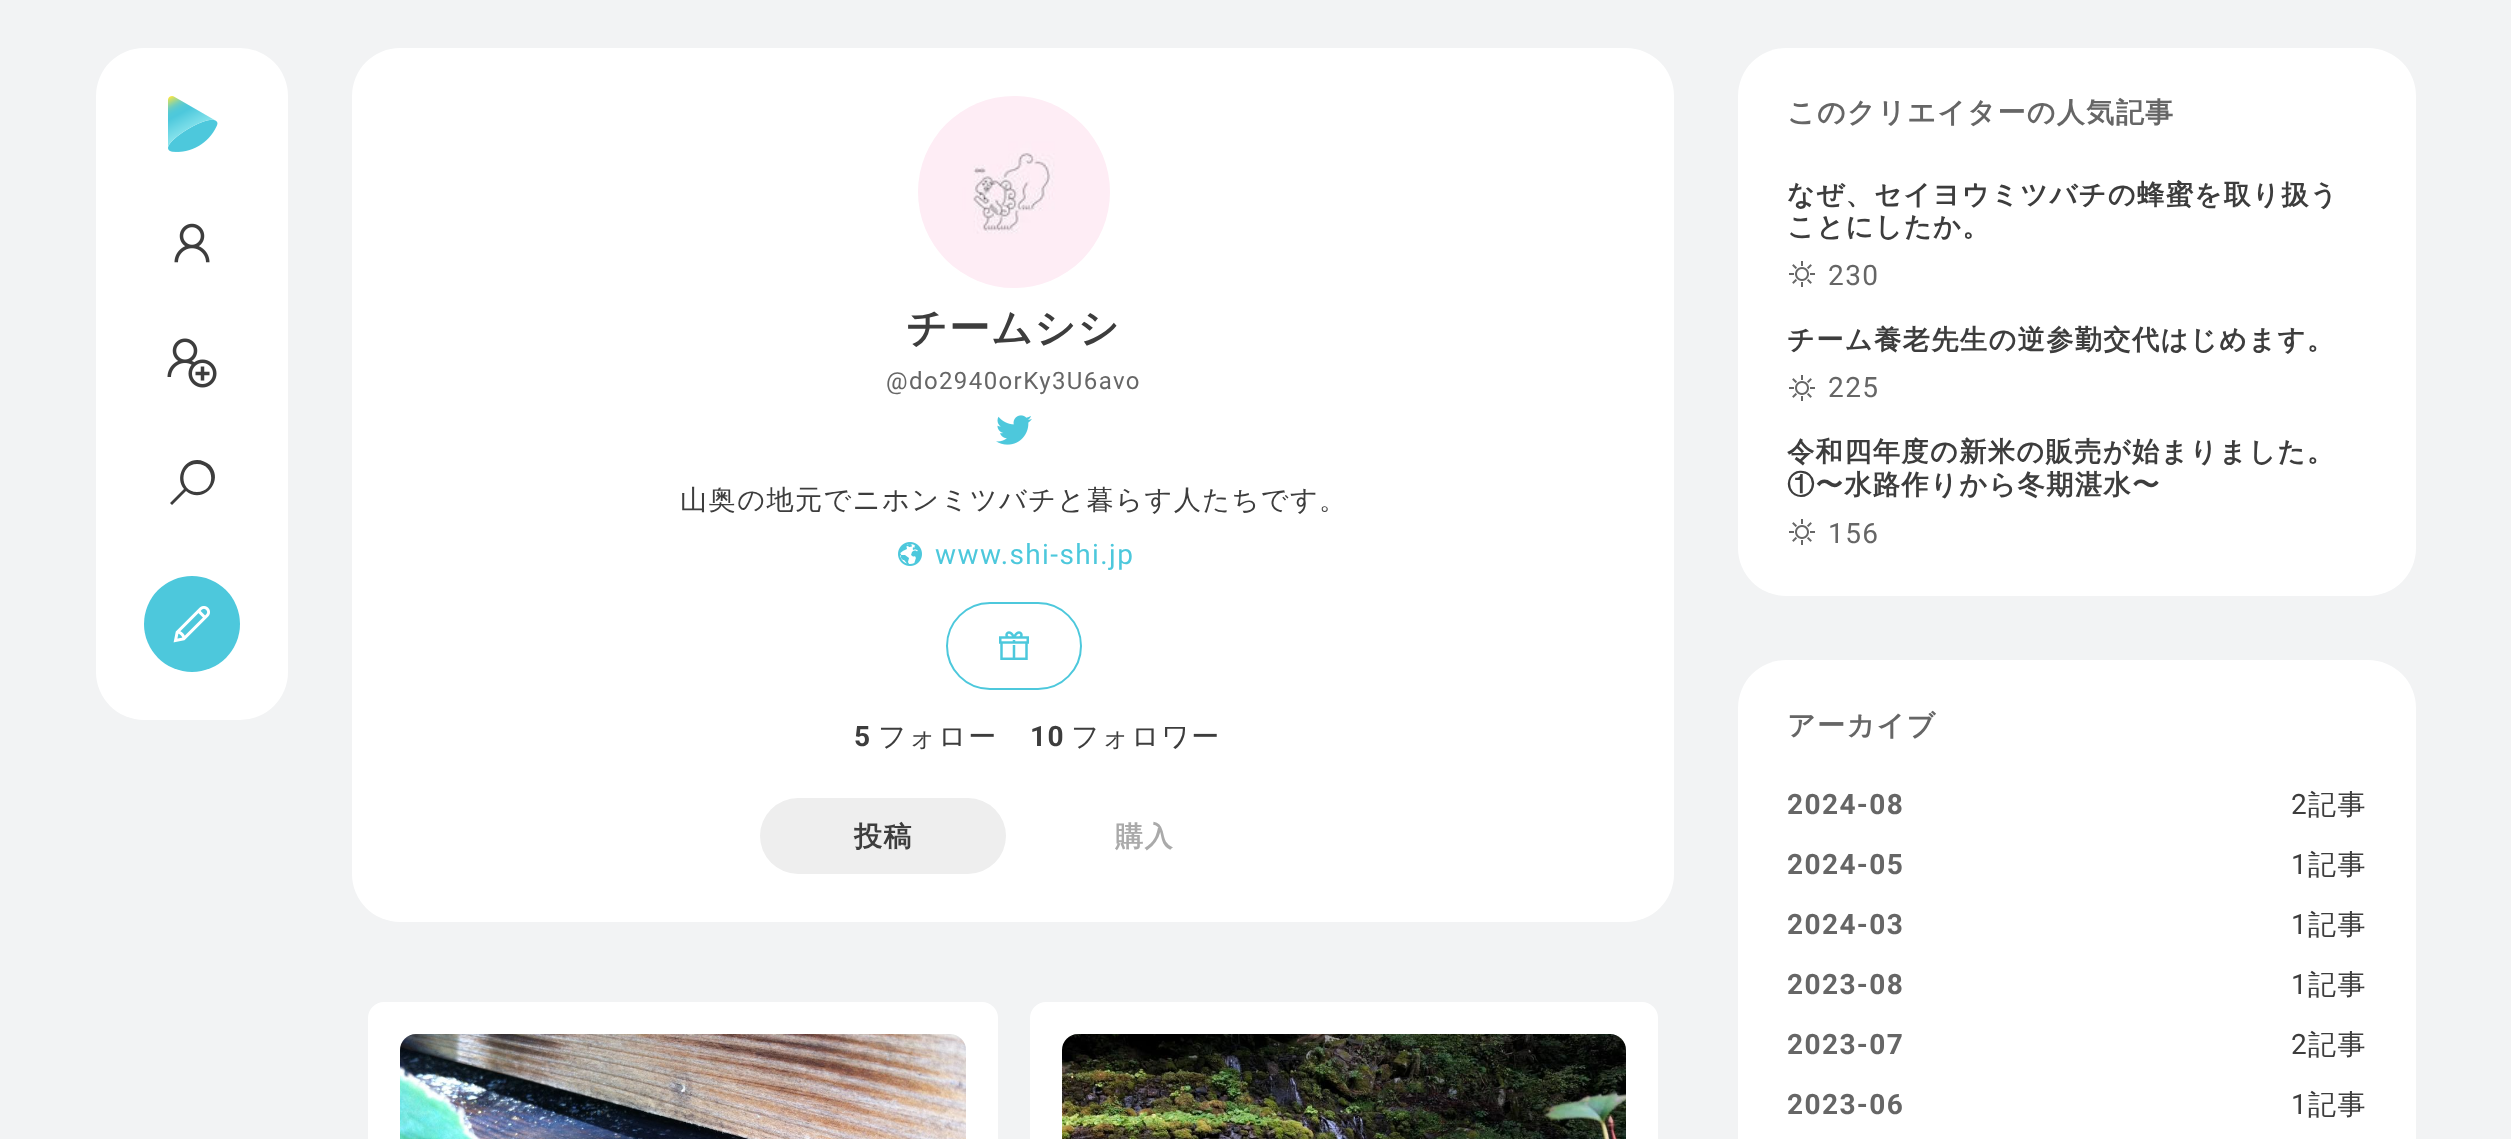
<?xml version="1.0" encoding="UTF-8"?>
<svg xmlns="http://www.w3.org/2000/svg" width="2511" height="1139">
    <rect width="100%" height="100%" fill="#F2F3F4"/>
    <rect x="96" y="48" width="192" height="672" rx="48" fill="#FFFFFF"/>
    <image x="168" y="96" width="50" height="56" href="img_01.png"/>
    <image x="174" y="223" width="36" height="40" href="img_02.png"/>
    <image x="167" y="338" width="50" height="50" href="img_03.png"/>
    <path d="M 197 460 C 183 460 175 478 184 489 L 170 503 L 172 505 L 186 491 C 203 505 225 481 210 465 C 206 462 202 460 197 460 Z M 197 464 C 216 464 216 492 197 492 C 179 492 179 464 197 464 Z" fill="#3D3D3D"/>
    <circle cx="192" cy="624" r="48" fill="#4DC8DC"/>
    <image x="173" y="606" width="37" height="37" href="img_04.png"/>
    <rect x="352" y="48" width="1322" height="874" rx="48" fill="#FFFFFF"/>
    <image x="918" y="96" width="192" height="192" href="img_05.png"/>
    <text x="906" y="342" font-family="WenQuanYi Zen Hei" font-size="40.75" font-weight="700" letter-spacing="1.4" fill="#3D3D3D">チームシシ</text>
    <text x="886" y="389" font-family="Roboto" font-size="24" letter-spacing="1.4" fill="#666666">@do2940orKy3U6avo</text>
    <image x="996" y="415" width="36" height="30" href="img_06.png"/>
    <text x="680" y="509" font-family="WenQuanYi Zen Hei" font-size="27.2" font-weight="500" letter-spacing="1.4" fill="#3D3D3D">山奥の地元でニホンミツバチと暮らす人たちです。</text>
    <image x="898" y="542" width="24" height="24" href="img_07.png"/>
    <text x="935" y="564" font-family="Roboto" font-size="28" letter-spacing="1.4" fill="#4DC8DC">www.shi-shi.jp</text>
    <rect x="947" y="603" width="134" height="86" rx="43" fill="none" stroke="#4DC8DC" stroke-width="2"/>
    <image x="999" y="631" width="30" height="29" href="img_08.png"/>
    <text x="854" y="746" font-family="Roboto" font-size="28" font-weight="700" letter-spacing="1.4" fill="#3D3D3D">5</text>
    <text x="878" y="746" font-family="WenQuanYi Zen Hei" font-size="28" font-weight="500" letter-spacing="1.4" fill="#3D3D3D">フォロー</text>
    <text x="1030" y="746" font-family="Roboto" font-size="28" font-weight="700" letter-spacing="1.4" fill="#3D3D3D">10</text>
    <text x="1071" y="746" font-family="WenQuanYi Zen Hei" font-size="28" font-weight="500" letter-spacing="1.4" fill="#3D3D3D">フォロワー</text>
    <rect x="760" y="798" width="246" height="76" rx="38" fill="#EEEEEE"/>
    <text x="854" y="846" font-family="WenQuanYi Zen Hei" font-size="28" font-weight="700" letter-spacing="1.4" fill="#3D3D3D">投稿</text>
    <text x="1115" y="846" font-family="WenQuanYi Zen Hei" font-size="28" font-weight="700" letter-spacing="1.4" fill="#AAAAAA">購入</text>
    <rect x="368" y="1002" width="630" height="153" rx="16" fill="#FFFFFF"/>
    <image x="400" y="1034" width="566" height="105" href="img_09.png"/>
    <rect x="1030" y="1002" width="628" height="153" rx="16" fill="#FFFFFF"/>
    <image x="1062" y="1034" width="564" height="105" href="img_10.png"/>
    <rect x="1738" y="48" width="678" height="548" rx="48" fill="#FFFFFF"/>
    <text x="1787" y="122" font-family="WenQuanYi Zen Hei" font-size="28" font-weight="700" letter-spacing="1.4" fill="#666666">このクリエイターの人気記事</text>
    <text font-family="WenQuanYi Zen Hei" font-size="27.2" font-weight="700" letter-spacing="1.4" fill="#3D3D3D">
        <tspan x="1787" y="204">なぜ、セイヨウミツバチの蜂蜜を取り扱う</tspan>
        <tspan x="1787" y="236">ことにしたか。</tspan>
    </text>
    <image x="1789" y="261" width="26" height="26" href="img_11.png"/>
    <text x="1828" y="285" font-family="Roboto" font-size="28" letter-spacing="1.4" fill="#666666">230</text>
    <text x="1787" y="349" font-family="WenQuanYi Zen Hei" font-size="27.2" font-weight="700" letter-spacing="1.4" fill="#3D3D3D">チーム養老先生の逆参勤交代はじめます。</text>
    <image x="1789" y="375" width="26" height="26" href="img_11.png"/>
    <text x="1828" y="397" font-family="Roboto" font-size="28" letter-spacing="1.4" fill="#666666">225</text>
    <text font-family="WenQuanYi Zen Hei" font-size="27.2" font-weight="700" letter-spacing="1.4" fill="#3D3D3D">
        <tspan x="1787" y="461">令和四年度の新米の販売が始まりました。</tspan>
        <tspan x="1787" y="494">①〜水路作りから冬期湛水〜</tspan>
    </text>
    <image x="1789" y="519" width="26" height="26" href="img_11.png"/>
    <text x="1828" y="543" font-family="Roboto" font-size="28" letter-spacing="1.4" fill="#666666">156</text>
    <rect x="1738" y="660" width="678" height="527" rx="48" fill="#FFFFFF"/>
    <text x="1787" y="735" font-family="WenQuanYi Zen Hei" font-size="28" font-weight="700" letter-spacing="1.4" fill="#666666">アーカイブ</text>
    <text x="1787" y="814" font-family="Roboto" font-size="28" font-weight="700" letter-spacing="1.4" fill="#666666">2024-08</text>
    <text x="2291" y="814" font-family="Roboto" font-size="28" letter-spacing="1.4" fill="#3D3D3D">2</text>
    <text x="2308" y="814" font-family="WenQuanYi Zen Hei" font-size="28" font-weight="500" letter-spacing="1.4" fill="#3D3D3D">記事</text>
    <text x="1787" y="874" font-family="Roboto" font-size="28" font-weight="700" letter-spacing="1.4" fill="#666666">2024-05</text>
    <text x="2291" y="874" font-family="Roboto" font-size="28" letter-spacing="1.4" fill="#3D3D3D">1</text>
    <text x="2308" y="874" font-family="WenQuanYi Zen Hei" font-size="28" font-weight="500" letter-spacing="1.4" fill="#3D3D3D">記事</text>
    <text x="1787" y="934" font-family="Roboto" font-size="28" font-weight="700" letter-spacing="1.4" fill="#666666">2024-03</text>
    <text x="2291" y="934" font-family="Roboto" font-size="28" letter-spacing="1.4" fill="#3D3D3D">1</text>
    <text x="2308" y="934" font-family="WenQuanYi Zen Hei" font-size="28" font-weight="500" letter-spacing="1.4" fill="#3D3D3D">記事</text>
    <text x="1787" y="994" font-family="Roboto" font-size="28" font-weight="700" letter-spacing="1.4" fill="#666666">2023-08</text>
    <text x="2291" y="994" font-family="Roboto" font-size="28" letter-spacing="1.4" fill="#3D3D3D">1</text>
    <text x="2308" y="994" font-family="WenQuanYi Zen Hei" font-size="28" font-weight="500" letter-spacing="1.4" fill="#3D3D3D">記事</text>
    <text x="1787" y="1054" font-family="Roboto" font-size="28" font-weight="700" letter-spacing="1.4" fill="#666666">2023-07</text>
    <text x="2291" y="1054" font-family="Roboto" font-size="28" letter-spacing="1.4" fill="#3D3D3D">2</text>
    <text x="2308" y="1054" font-family="WenQuanYi Zen Hei" font-size="28" font-weight="500" letter-spacing="1.4" fill="#3D3D3D">記事</text>
    <text x="1787" y="1114" font-family="Roboto" font-size="28" font-weight="700" letter-spacing="1.4" fill="#666666">2023-06</text>
    <text x="2291" y="1114" font-family="Roboto" font-size="28" letter-spacing="1.4" fill="#3D3D3D">1</text>
    <text x="2308" y="1114" font-family="WenQuanYi Zen Hei" font-size="28" font-weight="500" letter-spacing="1.4" fill="#3D3D3D">記事</text>
</svg>
